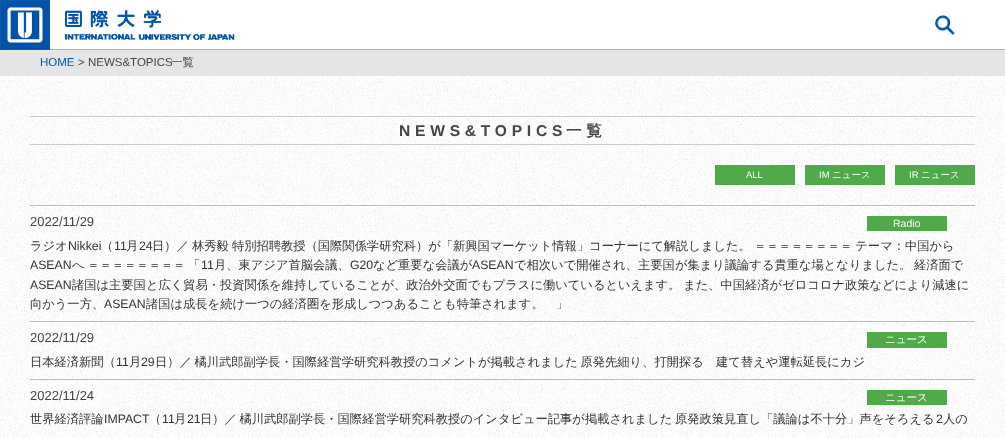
<?xml version="1.0" encoding="UTF-8"?>
<svg xmlns="http://www.w3.org/2000/svg" width="1005" height="438">
    <rect width="100%" height="100%" fill="#FFFFFF"/>
    <rect x="50" y="49" width="955" height="1" fill="#B3B3B3"/>
    <image x="0" y="0" width="50" height="50" href="img_01.png"/>
    <image x="65" y="10" width="170" height="30" href="img_02.png"/>
    <image x="935" y="15" width="20" height="20" href="img_03.png"/>
    <image x="0" y="76" width="1005" height="362" href="img_04.png"/>
    <rect x="0" y="50" width="1005" height="26" fill="#E5E5E5"/>
    <text x="40" y="66" font-family="Liberation Sans" font-size="11.5" fill="#0254A8">HOME</text>
    <text x="78" y="66" font-family="Liberation Sans" font-size="11.5" fill="#444444">&gt; NEWS&amp;TOPICS</text>
    <text x="171" y="66" font-family="WenQuanYi Zen Hei" font-size="11.5" font-weight="500" fill="#444444">一覧</text>
    <rect x="30" y="116" width="945" height="1" fill="#CACACA"/>
    <rect x="30" y="144" width="945" height="1" fill="#CACACA"/>
    <text x="399" y="136" font-family="Liberation Sans" font-size="15.6" font-weight="700" letter-spacing="4.75" fill="#444444">NEWS&amp;TOPICS</text>
    <text x="566" y="136" font-family="WenQuanYi Zen Hei" font-size="15.6" font-weight="700" letter-spacing="4.75" fill="#444444">一覧</text>
    <rect x="715" y="165" width="80" height="20" fill="#4FAB48"/>
    <text x="746" y="178" font-family="Liberation Sans" font-size="9.5" fill="#FFFFFF">ALL</text>
    <rect x="805" y="165" width="80" height="20" fill="#4FAB48"/>
    <text x="819" y="178" font-family="Liberation Sans" font-size="9.5" fill="#FFFFFF">IM</text>
    <text x="832" y="178" font-family="WenQuanYi Zen Hei" font-size="9.5" font-weight="500" fill="#FFFFFF">ニュース</text>
    <rect x="895" y="165" width="80" height="20" fill="#4FAB48"/>
    <text x="909" y="178" font-family="Liberation Sans" font-size="9.5" fill="#FFFFFF">IR</text>
    <text x="921" y="178" font-family="WenQuanYi Zen Hei" font-size="9.5" font-weight="500" fill="#FFFFFF">ニュース</text>
    <rect x="30" y="205" width="945" height="1" fill="#BBBBBB"/>
    <rect x="30" y="321" width="945" height="1" fill="#BBBBBB"/>
    <text x="30" y="226" font-family="Liberation Sans" font-size="13" fill="#444444">2022/11/29</text>
    <rect x="867" y="216" width="80" height="15" fill="#4FAB48"/>
    <text x="893" y="227" font-family="Liberation Sans" font-size="10.5" fill="#FFFFFF">Radio</text>
    <text x="30" y="250" font-family="WenQuanYi Zen Hei" font-size="12.28" font-weight="500" fill="#333333">ラジオ</text>
    <text x="68" y="250" font-family="Liberation Sans" font-size="12.28" fill="#333333">Nikkei</text>
    <text x="101" y="250" font-family="WenQuanYi Zen Hei" font-size="12.28" font-weight="500" fill="#333333">（</text>
    <text x="114" y="250" font-family="Liberation Sans" font-size="12.28" fill="#333333">11</text>
    <text x="126" y="250" font-family="WenQuanYi Zen Hei" font-size="12.28" font-weight="500" fill="#333333">月</text>
    <text x="139" y="250" font-family="Liberation Sans" font-size="12.28" fill="#333333">24</text>
    <text x="152" y="250" word-spacing="-0.5" font-family="WenQuanYi Zen Hei" font-size="12.28" font-weight="500" fill="#333333">日）／ 林秀毅 特別招聘教授（国際関係学研究科）が「新興国マーケット情報」コーナーにて解説しました。 ＝＝＝＝＝＝＝＝ テーマ：中国から</text>
    <text x="30" y="269" font-family="Liberation Sans" font-size="12.28" fill="#333333">ASEAN</text>
    <text x="72" y="269" word-spacing="-1" font-family="WenQuanYi Zen Hei" font-size="12.28" font-weight="500" fill="#333333">へ ＝＝＝＝＝＝＝＝ 「</text>
    <text x="201" y="269" font-family="Liberation Sans" font-size="12.28" fill="#333333">11</text>
    <text x="214" y="269" font-family="WenQuanYi Zen Hei" font-size="12.28" font-weight="500" fill="#333333">月、東アジア首脳会議、</text>
    <text x="350" y="269" font-family="Liberation Sans" font-size="12.28" fill="#333333">G20</text>
    <text x="373" y="269" font-family="WenQuanYi Zen Hei" font-size="12.28" font-weight="500" fill="#333333">など重要な会議が</text>
    <text x="472" y="269" font-family="Liberation Sans" font-size="12.28" fill="#333333">ASEAN</text>
    <text x="514" y="269" word-spacing="-1" font-family="WenQuanYi Zen Hei" font-size="12.28" font-weight="500" fill="#333333">で相次いで開催され、主要国が集まり議論する貴重な場となりました。 経済面で</text>
    <text x="30" y="289" font-family="Liberation Sans" font-size="12.28" fill="#333333">ASEAN</text>
    <text x="72" y="289" word-spacing="-1" font-family="WenQuanYi Zen Hei" font-size="12.28" font-weight="500" fill="#333333">諸国は主要国と広く貿易・投資関係を維持していることが、政治外交面でもプラスに働いているといえます。 また、中国経済がゼロコロナ政策などにより減速に</text>
    <text x="30" y="308" font-family="WenQuanYi Zen Hei" font-size="12.28" font-weight="500" fill="#333333">向かう一方、</text>
    <text x="104" y="308" font-family="Liberation Sans" font-size="12.28" fill="#333333">ASEAN</text>
    <text x="146" y="308" font-family="WenQuanYi Zen Hei" font-size="12.28" font-weight="500" fill="#333333">諸国は成長を続け一つの経済圏を形成しつつあることも特筆されます。　」</text>
    <rect x="30" y="379" width="945" height="1" fill="#BBBBBB"/>
    <text x="30" y="342" font-family="Liberation Sans" font-size="13" fill="#444444">2022/11/29</text>
    <rect x="867" y="332" width="80" height="16" fill="#4FAB48"/>
    <text x="885" y="343" font-family="WenQuanYi Zen Hei" font-size="10.5" font-weight="500" fill="#FFFFFF">ニュース</text>
    <text x="30" y="366" font-family="WenQuanYi Zen Hei" font-size="12.28" font-weight="500" fill="#333333">日本経済新聞（</text>
    <text x="116" y="366" font-family="Liberation Sans" font-size="12.28" fill="#333333">11</text>
    <text x="129" y="366" font-family="WenQuanYi Zen Hei" font-size="12.28" font-weight="500" fill="#333333">月</text>
    <text x="141" y="366" font-family="Liberation Sans" font-size="12.28" fill="#333333">29</text>
    <text x="155" y="366" word-spacing="-1" font-family="WenQuanYi Zen Hei" font-size="12.28" font-weight="500" fill="#333333">日）／ 橘川武郎副学長・国際経営学研究科教授のコメントが掲載されました 原発先細り、打開探る　建て替えや運転延長にカジ</text>
    <text x="30" y="400" font-family="Liberation Sans" font-size="13" fill="#444444">2022/11/24</text>
    <rect x="867" y="390" width="80" height="15" fill="#4FAB48"/>
    <text x="885" y="401" font-family="WenQuanYi Zen Hei" font-size="10.5" font-weight="500" fill="#FFFFFF">ニュース</text>
    <text x="30" y="423" font-family="WenQuanYi Zen Hei" font-size="12.28" font-weight="500" fill="#333333">世界経済評論</text>
    <text x="104" y="423" font-family="Liberation Sans" font-size="12.28" fill="#333333">IMPACT</text>
    <text x="149" y="423" font-family="WenQuanYi Zen Hei" font-size="12.28" font-weight="500" fill="#333333">（</text>
    <text x="162" y="423" font-family="Liberation Sans" font-size="12.28" fill="#333333">11</text>
    <text x="174" y="423" font-family="WenQuanYi Zen Hei" font-size="12.28" font-weight="500" fill="#333333">月</text>
    <text x="187" y="423" font-family="Liberation Sans" font-size="12.28" fill="#333333">21</text>
    <text x="200" y="423" word-spacing="-1" font-family="WenQuanYi Zen Hei" font-size="12.28" font-weight="500" fill="#333333">日）／ 橘川武郎副学長・国際経営学研究科教授のインタビュー記事が掲載されました 原発政策見直し「議論は不十分」声をそろえる</text>
    <text x="936" y="423" font-family="Liberation Sans" font-size="12.28" fill="#333333">2</text>
    <text x="943" y="423" font-family="WenQuanYi Zen Hei" font-size="12.28" font-weight="500" fill="#333333">人の</text>
</svg>
